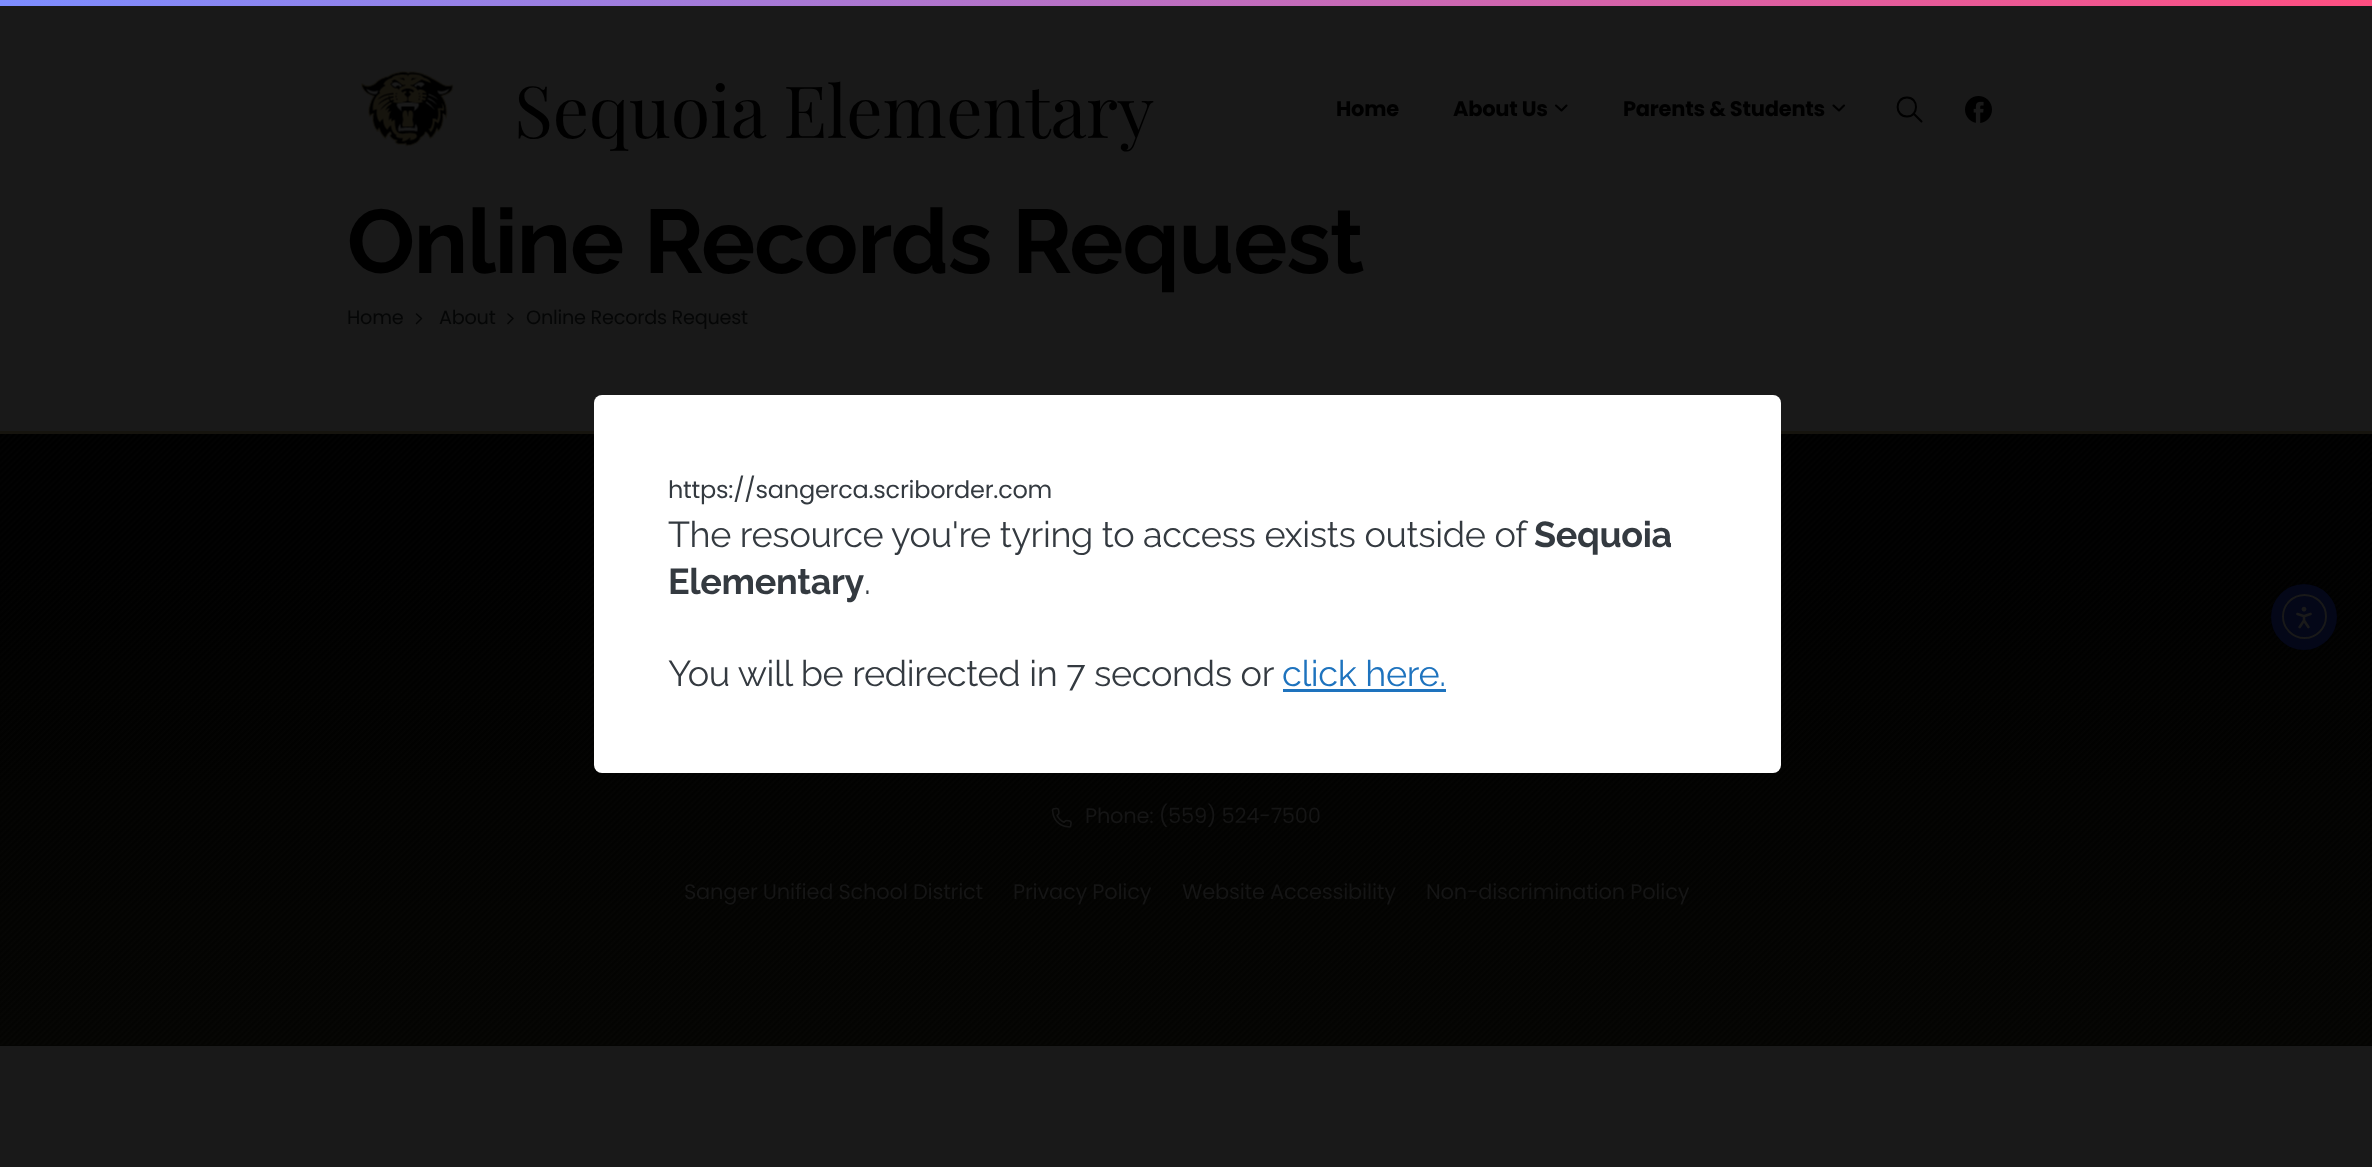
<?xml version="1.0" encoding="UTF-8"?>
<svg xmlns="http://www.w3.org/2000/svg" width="2372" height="1167">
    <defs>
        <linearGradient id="g1" gradientUnits="userSpaceOnUse" x1="0" y1="3" x2="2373" y2="3"><stop offset="0" stop-color="#7D8DFF"/><stop offset="1" stop-color="#FF4F81"/></linearGradient>
        <linearGradient id="g2" gradientUnits="userSpaceOnUse" x1="1187" y1="433" x2="1187" y2="1046"><stop offset="0" stop-color="#000000"/><stop offset="1" stop-color="#050503"/></linearGradient>
    </defs>
    <rect width="100%" height="100%" fill="#191919"/>
    <rect x="0" y="0" width="2372" height="6" fill="url(#g1)"/>
    <image x="361" y="71" width="93" height="76" href="img_01.png"/>
    <text x="514" y="138" font-family="Playfair Display" font-size="72" letter-spacing="-0.25" fill="#000000">Sequoia Elementary</text>
    <text x="1336" y="116" font-family="Poppins" font-size="21" font-weight="700" letter-spacing="-0.25" fill="#000000">Home</text>
    <text x="1453" y="116" font-family="Poppins" font-size="21" font-weight="700" letter-spacing="-0.25" fill="#000000">About Us</text>
    <path d="M 1556 105.5 L 1561.5 110.5 L 1566.5 105.5" fill="none" stroke="#000000" stroke-width="2.1" stroke-linecap="round" stroke-linejoin="round"/>
    <text x="1623" y="116" font-family="Poppins" font-size="21" font-weight="700" letter-spacing="-0.25" fill="#000000">Parents &amp; Students</text>
    <path d="M 1833.5 105.5 L 1839 110.5 L 1844 105.5" fill="none" stroke="#000000" stroke-width="2.1" stroke-linecap="round" stroke-linejoin="round"/>
    <path d="M 1907 116.5 C 1919 116.5 1919 97.5 1907 97.5 C 1894.5 97.5 1894.5 116.5 1907 116.5 Z M 1913.5 113.5 L 1921.5 121.5" fill="none" stroke="#000000" stroke-width="2" stroke-linecap="round" stroke-linejoin="round"/>
    <image x="1965" y="96" width="27" height="27" href="img_02.png"/>
    <text x="347" y="273" font-family="Raleway" font-size="90" font-weight="700" letter-spacing="-0.9" fill="#000000">Online Records Request</text>
    <text x="347" y="324" font-family="Poppins" font-size="19.25" letter-spacing="-0.25" fill="#050606">Home</text>
    <path d="M 416.5 323.5 L 421.5 318.5 L 416.5 314" fill="none" stroke="#050606" stroke-width="1.4" stroke-linecap="round" stroke-linejoin="round"/>
    <text x="439" y="324" font-family="Poppins" font-size="19.25" letter-spacing="-0.25" fill="#050606">About</text>
    <path d="M 508 323.5 L 513 318.5 L 508 314" fill="none" stroke="#050606" stroke-width="1.4" stroke-linecap="round" stroke-linejoin="round"/>
    <text x="526" y="324" font-family="Poppins" font-size="19.25" letter-spacing="-0.25" fill="#050606">Online Records Request</text>
    <rect x="0" y="434" width="2372" height="612" fill="url(#g2)"/>
    <rect x="0" y="431" width="2372" height="3" fill="#16140E"/>
    <image x="0" y="434" width="2372" height="612" href="img_03.png"/>
    <image x="1000" y="773" width="1" height="1" href="img_04.png"/>
    <image x="1051" y="807" width="21" height="21" href="img_05.png"/>
    <text x="1085" y="823" font-family="Poppins" font-size="21" letter-spacing="-0.25" fill="#151515">Phone: (559) 524-7500</text>
    <text x="684" y="899" font-family="Poppins" font-size="21" letter-spacing="-0.25" fill="#151515">Sanger Unified School District</text>
    <text x="1013" y="899" font-family="Poppins" font-size="21" letter-spacing="-0.25" fill="#151515">Privacy Policy</text>
    <text x="1182" y="899" font-family="Poppins" font-size="21" letter-spacing="-0.25" fill="#151515">Website Accessibility</text>
    <text x="1426" y="899" font-family="Poppins" font-size="21" letter-spacing="-0.25" fill="#151515">Non-discrimination Policy</text>
    <rect x="594" y="395" width="1187" height="378" rx="8" fill="#FFFFFF"/>
    <text x="668" y="498" font-family="Poppins" font-size="24" letter-spacing="-0.25" fill="#343A40">https://sangerca.scriborder.com</text>
    <text x="668" y="547" font-family="Raleway" font-size="36" letter-spacing="-0.35" fill="#343A40">The resource you're tyring to access exists outside of</text>
    <text x="1534" y="547" font-family="Raleway" font-size="36" font-weight="700" letter-spacing="-0.35" fill="#343A40">Sequoia</text>
    <text x="668" y="594" font-family="Raleway" font-size="36" font-weight="700" letter-spacing="-0.35" fill="#343A40">Elementary</text>
    <text x="864" y="594" font-family="Raleway" font-size="36" letter-spacing="-0.35" fill="#343A40">.</text>
    <text x="668" y="686" font-family="Raleway" font-size="36" letter-spacing="-0.35" fill="#343A40">You will be redirected in 7 seconds or</text>
    <text x="1282" y="686" font-family="Raleway" font-size="36" letter-spacing="-0.35" fill="#1E73BE">click here.</text>
    <rect x="1283" y="689" width="163" height="3" fill="#1E73BE"/>
    <circle cx="2304" cy="617" r="33" fill="#040718"/>
    <circle cx="2304.5" cy="616.5" r="21.5" fill="none" stroke="#191919" stroke-width="2"/>
    <image x="2296" y="606" width="16" height="23" href="img_06.png"/>
</svg>
